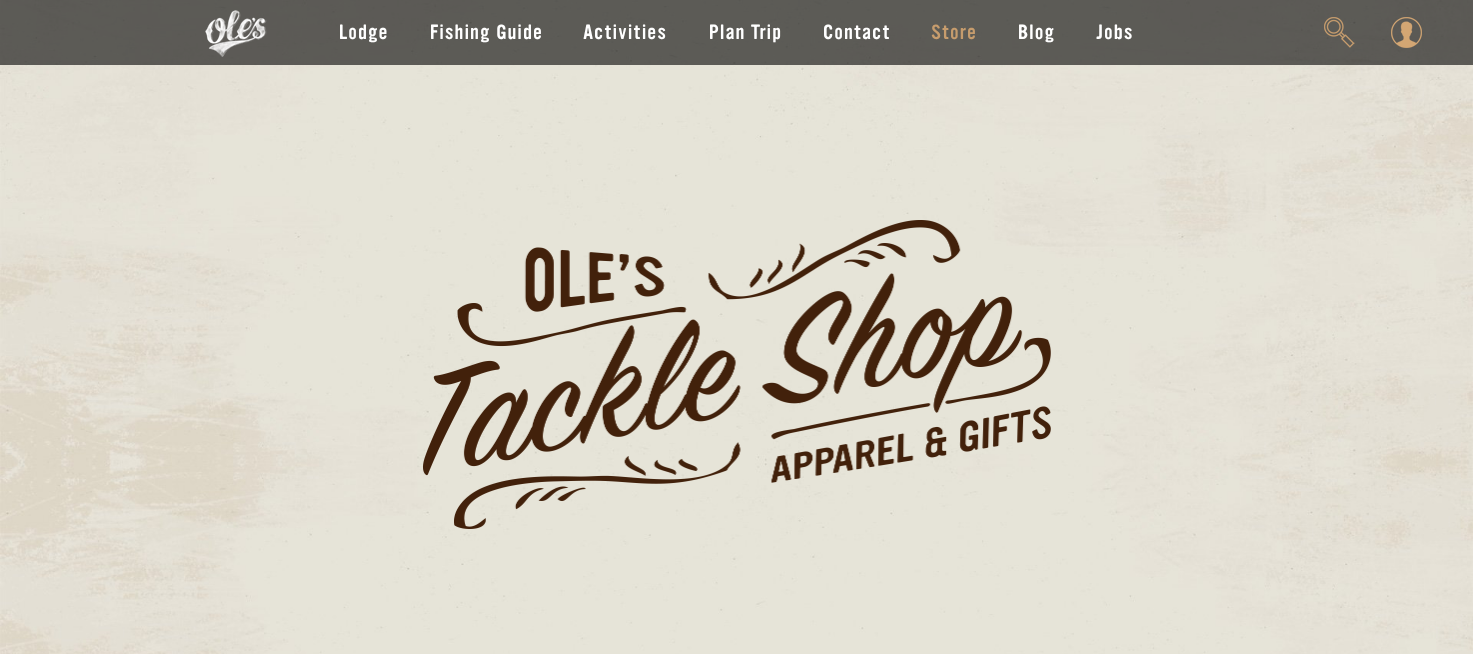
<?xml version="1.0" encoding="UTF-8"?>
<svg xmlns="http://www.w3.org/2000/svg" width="1473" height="654">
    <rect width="100%" height="100%" fill="#FFFFFF"/>
    <image x="0" y="0" width="1473" height="654" href="img_01.png"/>
    <image x="423" y="220" width="628" height="309" href="img_02.png"/>
    <rect x="0" y="0" width="1473" height="65" fill="#000000" fill-opacity="0.6"/>
    <image x="205" y="10" width="62" height="47" href="img_03.png"/>
    <text x="339" y="39" font-family="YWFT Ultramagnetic" font-size="18" letter-spacing="1" fill="#FFFFFF">Lodge</text>
    <text x="430" y="39" font-family="YWFT Ultramagnetic" font-size="18" letter-spacing="1" fill="#FFFFFF">Fishing Guide</text>
    <text x="583" y="39" font-family="YWFT Ultramagnetic" font-size="18" letter-spacing="1" fill="#FFFFFF">Activities</text>
    <text x="709" y="39" font-family="YWFT Ultramagnetic" font-size="18" letter-spacing="1" fill="#FFFFFF">Plan Trip</text>
    <text x="823" y="39" font-family="YWFT Ultramagnetic" font-size="18" letter-spacing="1" fill="#FFFFFF">Contact</text>
    <text x="931" y="39" font-family="YWFT Ultramagnetic" font-size="18" letter-spacing="1" fill="#C69C6D">Store</text>
    <text x="1018" y="39" font-family="YWFT Ultramagnetic" font-size="18" letter-spacing="1" fill="#FFFFFF">Blog</text>
    <text x="1096" y="39" font-family="YWFT Ultramagnetic" font-size="18" letter-spacing="1" fill="#FFFFFF">Jobs</text>
    <image x="1324" y="17" width="31" height="31" href="img_04.png"/>
    <image x="1391" y="17" width="31" height="31" href="img_05.png"/>
</svg>
